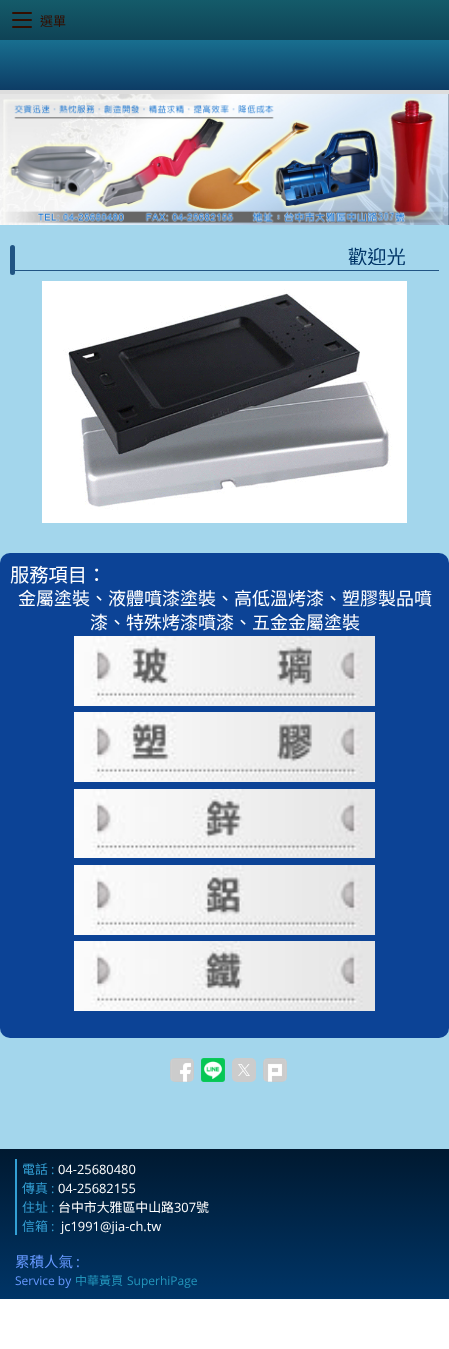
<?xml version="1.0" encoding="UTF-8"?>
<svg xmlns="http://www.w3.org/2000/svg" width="449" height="1349">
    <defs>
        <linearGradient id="g1" gradientUnits="userSpaceOnUse" x1="225" y1="0" x2="225" y2="150"><stop offset="0" stop-color="#145B6A"/><stop offset="1" stop-color="#00001F"/></linearGradient>
        <linearGradient id="g2" gradientUnits="userSpaceOnUse" x1="225" y1="0" x2="225" y2="150"><stop offset="0" stop-color="#2197B1"/><stop offset="1" stop-color="#000033"/></linearGradient>
        <clipPath id="clip1"><rect x="25" y="245" width="386" height="20"/></clipPath>
        <linearGradient id="g3" gradientUnits="userSpaceOnUse" x1="225" y1="1149" x2="225" y2="1299"><stop offset="0" stop-color="#001930"/><stop offset="1" stop-color="#003567"/></linearGradient>
    </defs>
    <rect width="100%" height="100%" fill="#FFFFFF"/>
    <rect x="0" y="0" width="449" height="40" fill="url(#g1)"/>
    <rect x="12" y="19" width="20" height="2" rx="1" fill="#330E00"/>
    <rect x="12" y="12" width="20" height="2" rx="1" fill="#330E00"/>
    <rect x="12" y="26" width="20" height="2" rx="1" fill="#330E00"/>
    <text x="40" y="26" font-family="Noto Sans CJK TC" font-size="13" fill="#330E00">選單</text>
    <rect x="0" y="40" width="449" height="50" fill="url(#g2)"/>
    <rect x="0" y="90" width="449" height="4" fill="#DDDDDD"/>
    <image x="0" y="94" width="449" height="131" href="img_01.png"/>
    <rect x="0" y="225" width="449" height="924" fill="#A3D6EC"/>
    <rect x="10" y="270" width="429" height="1" fill="#215584"/>
    <rect x="10" y="245" width="5" height="30" rx="2.5" fill="#215584"/>
    <g clip-path="url(#clip1)">
        <text x="348" y="264" font-family="Noto Sans CJK TC" font-size="19.25" fill="#003567">歡迎光</text>
    </g>
    <image x="42" y="281" width="365" height="242" href="img_02.png"/>
    <rect x="0" y="553" width="449" height="485" rx="10" fill="#0C4396"/>
    <text x="10" y="582" font-family="Noto Sans CJK TC" font-size="19.25" fill="#FFFFFF">服務項目：</text>
    <text x="18" y="605" font-family="Noto Sans CJK TC" font-size="18" fill="#FFFFFF">金屬塗裝、液體噴漆塗裝、高低溫烤漆、塑膠製品噴</text>
    <text x="90" y="629" font-family="Noto Sans CJK TC" font-size="18" fill="#FFFFFF">漆、特殊烤漆噴漆、五金金屬塗裝</text>
    <image x="74" y="636" width="301" height="70" href="img_03.png"/>
    <image x="74" y="712" width="301" height="70" href="img_04.png"/>
    <image x="74" y="789" width="301" height="69" href="img_05.png"/>
    <image x="74" y="865" width="301" height="70" href="img_06.png"/>
    <image x="74" y="941" width="301" height="70" href="img_07.png"/>
    <image x="170" y="1058" width="24" height="24" href="img_08.png"/>
    <image x="201" y="1058" width="24" height="24" href="img_09.png"/>
    <image x="232" y="1058" width="24" height="24" href="img_10.png"/>
    <image x="263" y="1058" width="24" height="24" href="img_11.png"/>
    <rect x="0" y="1149" width="449" height="150" fill="url(#g3)"/>
    <rect x="15" y="1159" width="2" height="76" fill="#33A0D5"/>
    <text x="22" y="1174" font-family="Noto Sans CJK TC" font-size="12.9" fill="#33A0D5">電話</text>
    <text x="51" y="1174" font-family="Open Sans" font-size="12.9" fill="#33A0D5">:</text>
    <text x="58" y="1174" font-family="Open Sans" font-size="12.9" fill="#FFFFFF">04-25680480</text>
    <text x="22" y="1193" font-family="Noto Sans CJK TC" font-size="12.9" fill="#33A0D5">傳真</text>
    <text x="51" y="1193" font-family="Open Sans" font-size="12.9" fill="#33A0D5">:</text>
    <text x="58" y="1193" font-family="Open Sans" font-size="12.9" fill="#FFFFFF">04-25682155</text>
    <text x="22" y="1212" font-family="Noto Sans CJK TC" font-size="12.9" fill="#33A0D5">住址</text>
    <text x="51" y="1212" font-family="Open Sans" font-size="12.9" fill="#33A0D5">:</text>
    <text x="58" y="1212" font-family="Noto Sans CJK TC" font-size="12.9" fill="#FFFFFF">台中市大雅區中山路</text>
    <text x="174" y="1212" font-family="Open Sans" font-size="12.9" fill="#FFFFFF">307</text>
    <text x="196" y="1212" font-family="Noto Sans CJK TC" font-size="12.9" fill="#FFFFFF">號</text>
    <text x="22" y="1231" font-family="Noto Sans CJK TC" font-size="12.9" fill="#33A0D5">信箱</text>
    <text x="51" y="1231" font-family="Open Sans" font-size="12.9" fill="#33A0D5">:</text>
    <text x="61" y="1231" font-family="Open Sans" font-size="12.9" fill="#FFFFFF">jc1991@jia-ch.tw</text>
    <text x="15" y="1267" font-family="Noto Sans CJK TC" font-size="14.5" fill="#6699FF">累積人氣</text>
    <text x="76" y="1267" font-family="Open Sans" font-size="14.5" fill="#6699FF">:</text>
    <text x="15" y="1285" font-family="Open Sans" font-size="12" fill="#6699FF">Service by</text>
    <text x="75" y="1285" font-family="Noto Sans CJK TC" font-size="12" fill="#2295BB">中華黃頁</text>
    <text x="127" y="1285" font-family="Open Sans" font-size="12" fill="#2295BB">SuperhiPage</text>
</svg>
